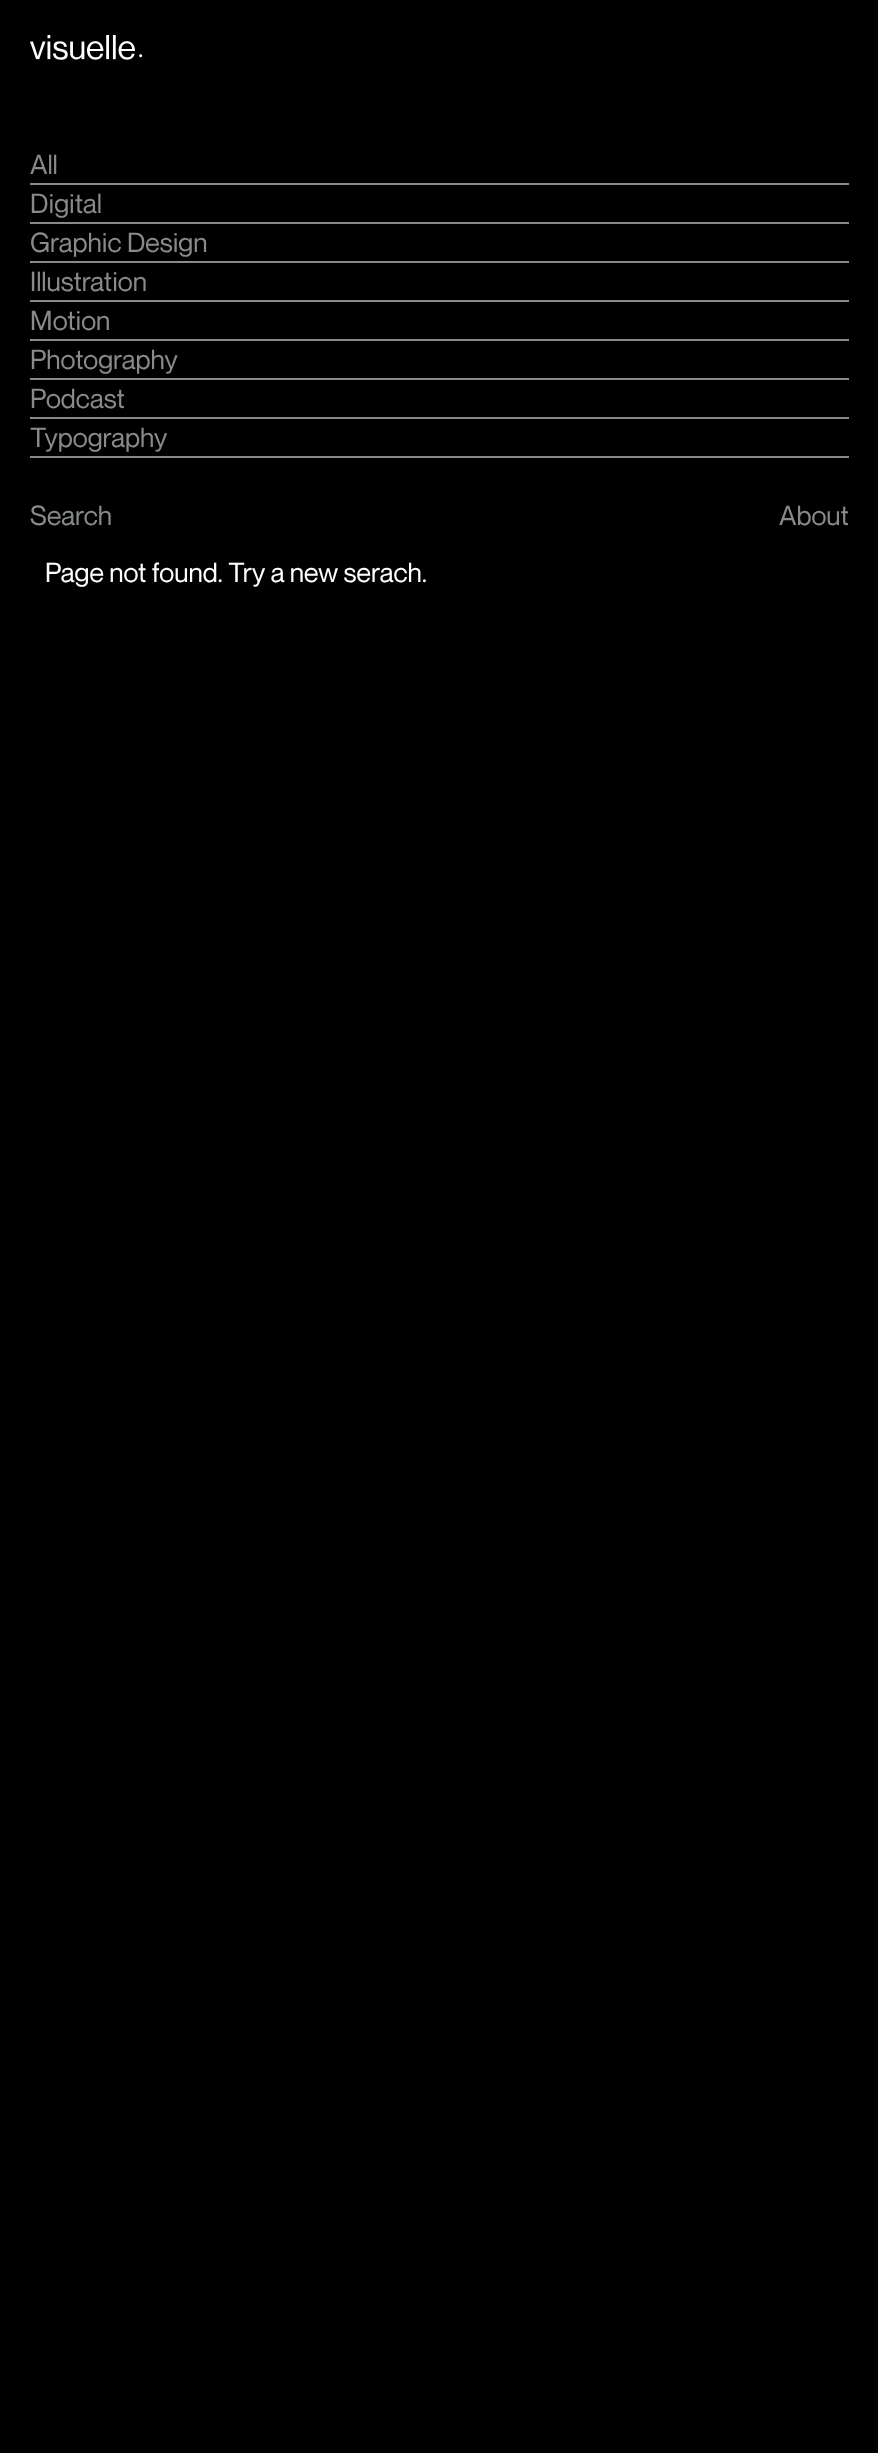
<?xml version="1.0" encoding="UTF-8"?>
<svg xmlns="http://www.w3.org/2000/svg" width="878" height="2453">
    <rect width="100%" height="100%" fill="#000000"/>
    <image x="30" y="35" width="105" height="25" href="img_01.png"/>
    <text x="138" y="57" font-family="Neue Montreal" font-size="27" fill="#FFFFFF">.</text>
    <rect x="30" y="183" width="819" height="2" fill="#878B89"/>
    <text x="30" y="174" font-family="Neue Montreal" font-size="27" fill="#878B89">All</text>
    <rect x="30" y="222" width="819" height="2" fill="#878B89"/>
    <text x="30" y="213" font-family="Neue Montreal" font-size="27" fill="#878B89">Digital</text>
    <rect x="30" y="261" width="819" height="2" fill="#878B89"/>
    <text x="30" y="252" font-family="Neue Montreal" font-size="27" fill="#878B89">Graphic Design</text>
    <rect x="30" y="300" width="819" height="2" fill="#878B89"/>
    <text x="30" y="291" font-family="Neue Montreal" font-size="27" fill="#878B89">Illustration</text>
    <rect x="30" y="339" width="819" height="2" fill="#878B89"/>
    <text x="30" y="330" font-family="Neue Montreal" font-size="27" fill="#878B89">Motion</text>
    <rect x="30" y="378" width="819" height="2" fill="#878B89"/>
    <text x="30" y="369" font-family="Neue Montreal" font-size="27" fill="#878B89">Photography</text>
    <rect x="30" y="417" width="819" height="2" fill="#878B89"/>
    <text x="30" y="408" font-family="Neue Montreal" font-size="27" fill="#878B89">Podcast</text>
    <rect x="30" y="456" width="819" height="2" fill="#878B89"/>
    <text x="30" y="447" font-family="Neue Montreal" font-size="27" fill="#878B89">Typography</text>
    <text x="30" y="525" font-family="Neue Montreal" font-size="27" fill="#878B89">Search</text>
    <text x="779" y="525" font-family="Neue Montreal" font-size="27" fill="#878B89">About</text>
    <text x="45" y="582" font-family="Neue Montreal" font-size="27" fill="#FFFFFF">Page not found. Try a new serach.</text>
</svg>
